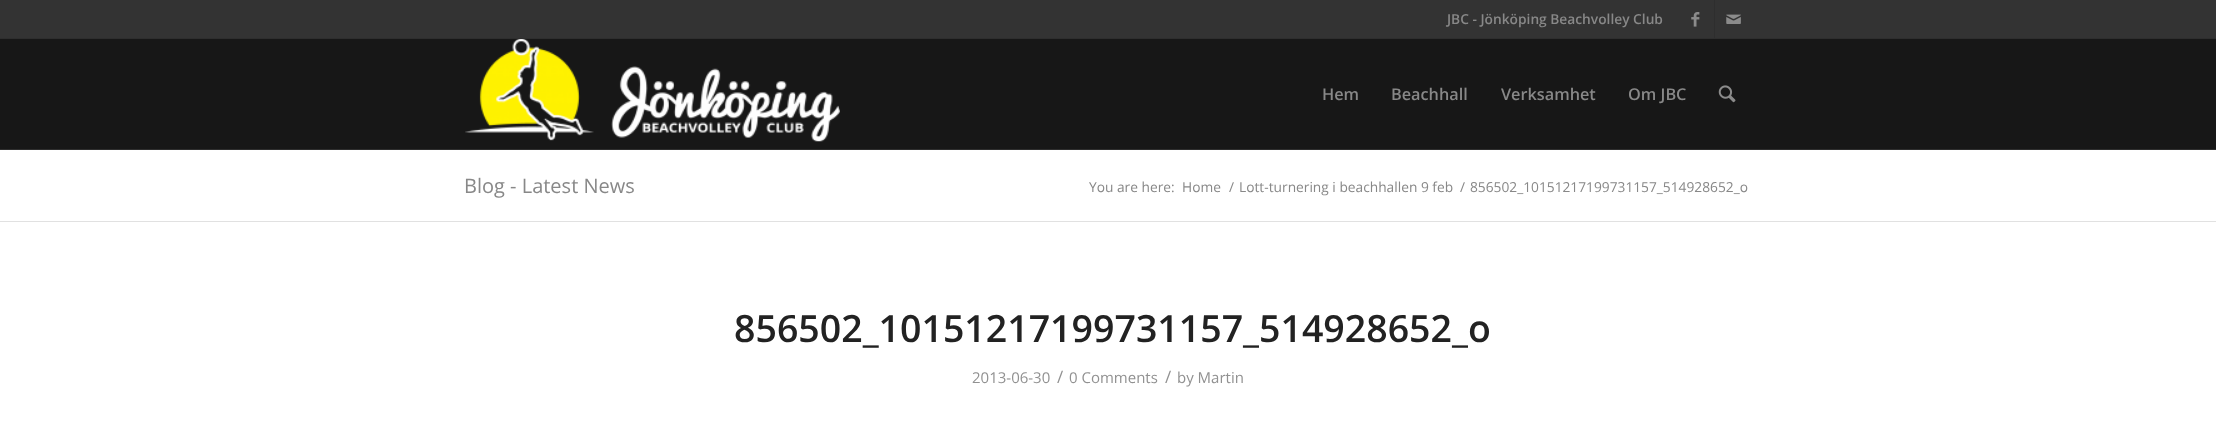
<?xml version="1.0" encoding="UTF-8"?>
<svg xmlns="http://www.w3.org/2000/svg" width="2216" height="434">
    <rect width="100%" height="100%" fill="#171717"/>
    <rect x="0" y="0" width="2216" height="38" fill="#333333"/>
    <rect x="0" y="38" width="2216" height="1" fill="#2E2E2E"/>
    <text x="1447" y="24" font-family="Open Sans" font-size="13.75" font-weight="600" fill="#888888">JBC - Jönköping Beachvolley Club</text>
    <rect x="1714" y="0" width="1" height="38" fill="#2E2E2E"/>
    <image x="1691" y="12" width="9" height="15" href="img_01.png"/>
    <image x="1726" y="14" width="15" height="10" href="img_02.png"/>
    <rect x="0" y="149" width="2216" height="1" fill="#2E2E2E"/>
    <image x="465" y="39" width="375" height="103" href="img_03.png"/>
    <text x="1322" y="100" font-family="Open Sans" font-size="16.25" font-weight="600" fill="#888888">Hem</text>
    <text x="1391" y="100" font-family="Open Sans" font-size="16.25" font-weight="600" fill="#888888">Beachhall</text>
    <text x="1501" y="100" font-family="Open Sans" font-size="16.25" font-weight="600" fill="#888888">Verksamhet</text>
    <text x="1628" y="100" font-family="Open Sans" font-size="16.25" font-weight="600" fill="#888888">Om JBC</text>
    <image x="1718" y="85" width="18" height="18" href="img_04.png"/>
    <rect x="0" y="150" width="2216" height="71" fill="#FFFFFF"/>
    <text x="464" y="193" font-family="Open Sans" font-size="20" fill="#888888">Blog - Latest News</text>
    <text x="1089" y="192" font-family="Open Sans" font-size="13.75" fill="#888888">You are here:</text>
    <text x="1182" y="192" font-family="Open Sans" font-size="13.75" fill="#888888">Home</text>
    <text x="1229" y="192" font-family="Open Sans" font-size="13.75" fill="#888888">/</text>
    <text x="1239" y="192" font-family="Open Sans" font-size="13.75" fill="#888888">Lott-turnering i beachhallen 9 feb</text>
    <text x="1460" y="192" font-family="Open Sans" font-size="13.75" fill="#888888">/</text>
    <text x="1470" y="192" font-family="Open Sans" font-size="13.75" fill="#888888">856502_10151217199731157_514928652_o</text>
    <rect x="0" y="222" width="2216" height="212" fill="#FFFFFF"/>
    <rect x="0" y="221" width="2216" height="1" fill="#E1E1E1"/>
    <text x="734" y="342" font-family="Open Sans" font-size="37.5" font-weight="600" fill="#222222">856502_10151217199731157_514928652_o</text>
    <text x="972" y="383" font-family="Open Sans" font-size="15" fill="#919191">2013-06-30</text>
    <text x="1057" y="383" font-family="Open Sans" font-size="17" fill="#919191">/</text>
    <text x="1069" y="383" font-family="Open Sans" font-size="15" fill="#919191">0 Comments</text>
    <text x="1165" y="383" font-family="Open Sans" font-size="17" fill="#919191">/</text>
    <text x="1177" y="383" font-family="Open Sans" font-size="15" fill="#919191">by Martin</text>
</svg>
